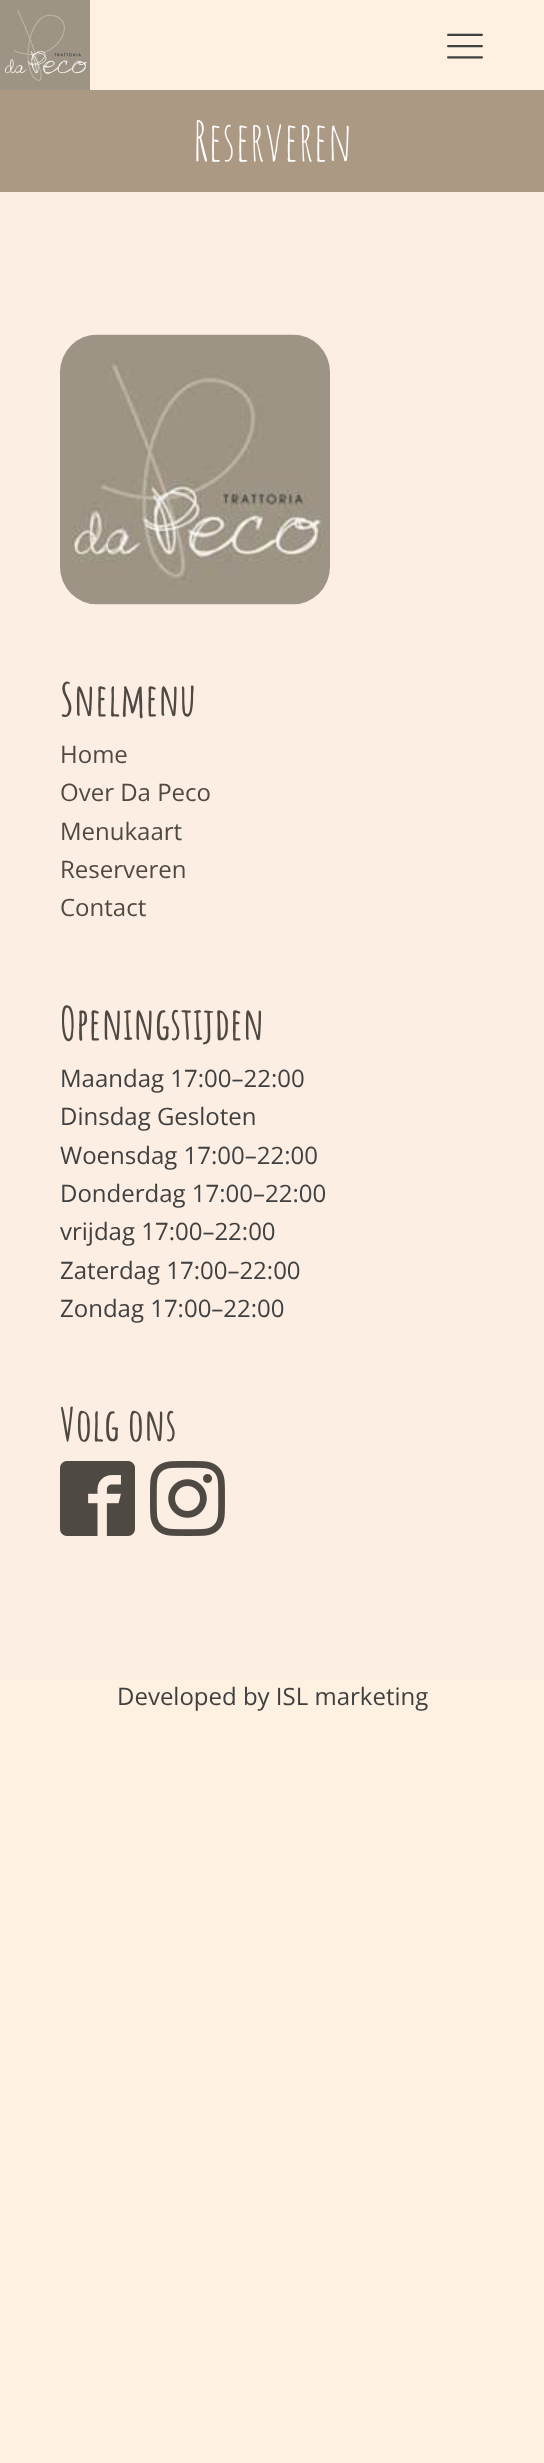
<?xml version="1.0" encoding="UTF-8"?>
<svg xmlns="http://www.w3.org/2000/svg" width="544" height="2463">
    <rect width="100%" height="100%" fill="#FFF1E1"/>
    <image x="0" y="0" width="90" height="90" href="img_01.png"/>
    <image x="447" y="33" width="36" height="26" href="img_02.png"/>
    <rect x="0" y="90" width="544" height="102" fill="#AB9984"/>
    <text x="193" y="161" font-family="Amatic SC" font-size="54" fill="#FFFFFF">Reserveren</text>
    <rect x="0" y="192" width="544" height="1487" fill="#FCEEE3"/>
    <image x="60" y="334" width="270" height="271" href="img_03.png"/>
    <text x="60" y="716" font-family="Amatic SC" font-size="45" font-weight="700" fill="#4F4943">Snelmenu</text>
    <text font-family="Open Sans" font-size="24" fill="#4F4943">
        <tspan x="60" y="763">Home</tspan>
        <tspan x="60" y="801">Over Da Peco</tspan>
        <tspan x="60" y="840">Menukaart</tspan>
        <tspan x="60" y="878">Reserveren</tspan>
        <tspan x="60" y="916">Contact</tspan>
    </text>
    <text x="60" y="1040" font-family="Amatic SC" font-size="45" font-weight="700" fill="#4F4943">Openingstijden</text>
    <text font-family="Open Sans" font-size="24" fill="#404040">
        <tspan x="60" y="1087">Maandag 17:00–22:00</tspan>
        <tspan x="60" y="1125">Dinsdag Gesloten</tspan>
        <tspan x="60" y="1164">Woensdag 17:00–22:00</tspan>
        <tspan x="60" y="1202">Donderdag 17:00–22:00</tspan>
        <tspan x="60" y="1240">vrijdag 17:00–22:00</tspan>
        <tspan x="60" y="1279">Zaterdag 17:00–22:00</tspan>
        <tspan x="60" y="1317">Zondag 17:00–22:00</tspan>
    </text>
    <text x="60" y="1441" font-family="Amatic SC" font-size="45" font-weight="700" fill="#4F4943">Volg ons</text>
    <image x="60" y="1461" width="75" height="75" href="img_04.png"/>
    <image x="150" y="1461" width="75" height="75" href="img_05.png"/>
    <text x="117" y="1705" font-family="Open Sans" font-size="24" fill="#404040">Developed by ISL marketing</text>
</svg>
